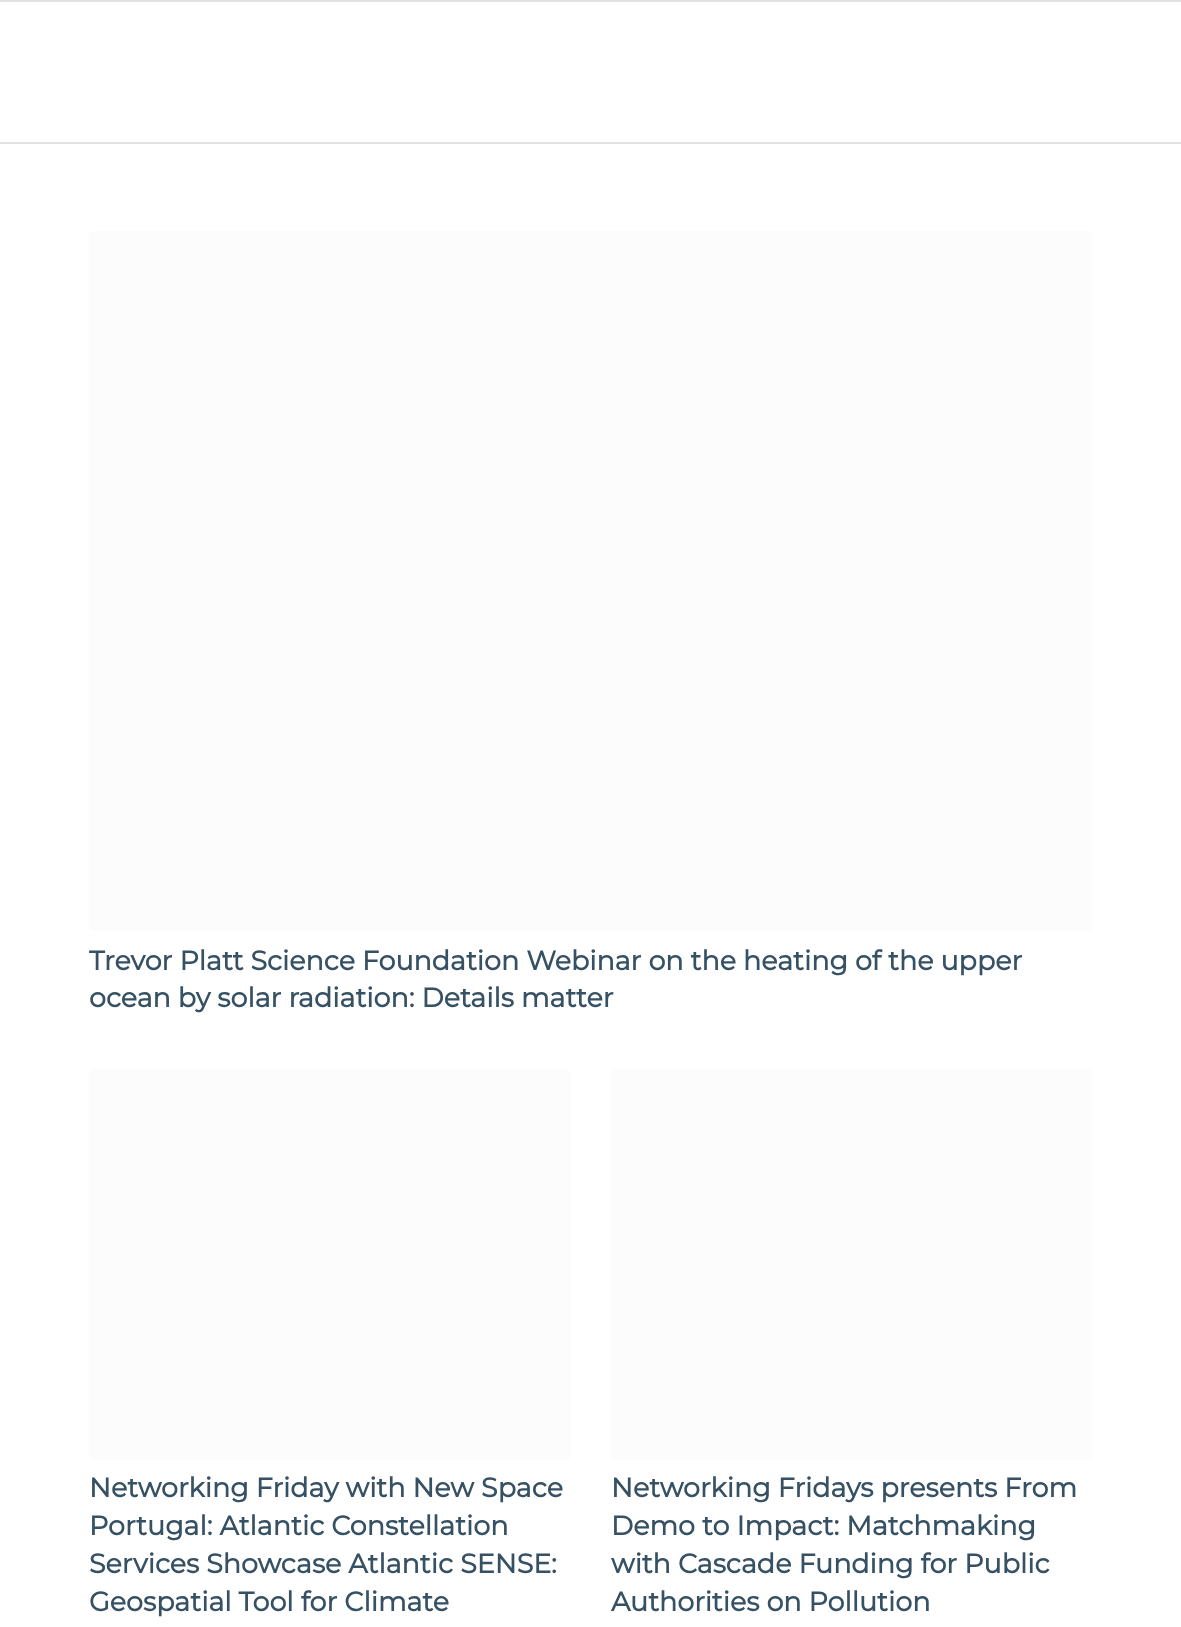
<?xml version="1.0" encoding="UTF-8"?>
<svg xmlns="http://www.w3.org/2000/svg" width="1181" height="1627">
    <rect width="100%" height="100%" fill="#FFFFFF"/>
    <rect x="0" y="0" width="1181" height="2" fill="#E1E1E1"/>
    <rect x="0" y="142" width="1181" height="2" fill="#E1E1E1"/>
    <rect x="89" y="231" width="1003" height="700" rx="5" fill="#FCFCFC"/>
    <text font-family="Montserrat" font-size="26.95" font-weight="700" fill="#365164">
        <tspan x="89" y="970">Trevor Platt Science Foundation Webinar on the heating of the upper</tspan>
        <tspan x="89" y="1007">ocean by solar radiation: Details matter</tspan>
    </text>
    <rect x="89" y="1069" width="482" height="391" rx="5" fill="#FCFCFC"/>
    <text font-family="Montserrat" font-size="26.95" font-weight="700" fill="#365164">
        <tspan x="89" y="1497">Networking Friday with New Space</tspan>
        <tspan x="89" y="1535">Portugal: Atlantic Constellation</tspan>
        <tspan x="89" y="1573">Services Showcase Atlantic SENSE:</tspan>
        <tspan x="89" y="1611">Geospatial Tool for Climate</tspan>
    </text>
    <rect x="611" y="1069" width="481" height="391" rx="5" fill="#FCFCFC"/>
    <text font-family="Montserrat" font-size="26.95" font-weight="700" fill="#365164">
        <tspan x="611" y="1497">Networking Fridays presents From</tspan>
        <tspan x="611" y="1535">Demo to Impact: Matchmaking</tspan>
        <tspan x="611" y="1573">with Cascade Funding for Public</tspan>
        <tspan x="611" y="1611">Authorities on Pollution</tspan>
    </text>
</svg>
